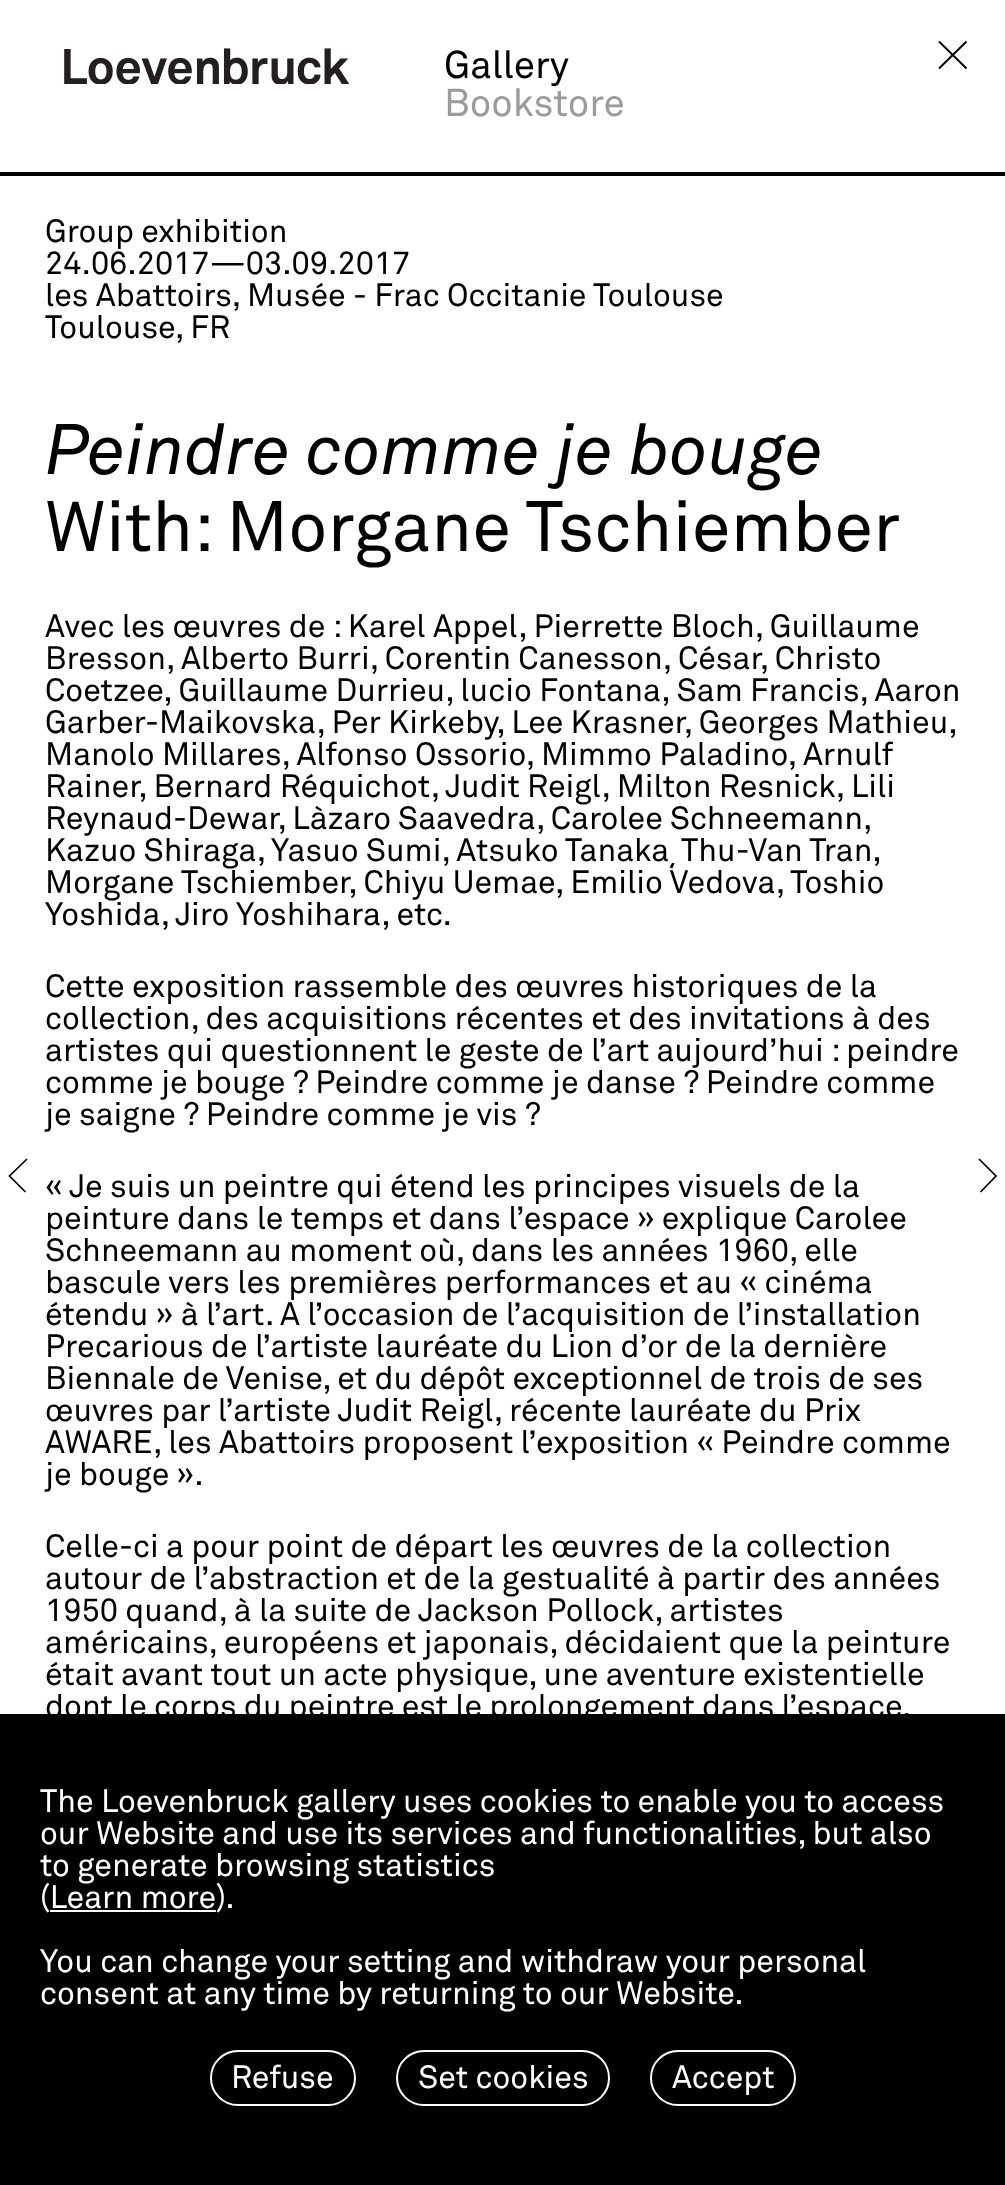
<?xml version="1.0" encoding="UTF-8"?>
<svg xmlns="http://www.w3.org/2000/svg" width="1005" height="2185">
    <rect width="100%" height="100%" fill="#FFFFFF"/>
    <rect x="0" y="172" width="1005" height="4" fill="#000000"/>
    <image x="64" y="48" width="286" height="36" href="img_01.png"/>
    <text x="444" y="78" font-family="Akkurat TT" font-size="38.5" fill="#000000">Gallery</text>
    <text x="444" y="116" font-family="Akkurat TT" font-size="38.5" fill="#9B9B9B">Bookstore</text>
    <path d="M 939 41.5 L 966.5 68.5 M 939 68.5 L 966.5 41.5" fill="none" stroke="#000000" stroke-width="1.9"/>
    <path d="M 27 1159 L 9.5 1176 L 25.5 1192" fill="none" stroke="#000000" stroke-width="1.7"/>
    <text font-family="Akkurat TT" font-size="32" fill="#000000">
        <tspan x="45" y="242">Group exhibition</tspan>
        <tspan x="45" y="274">24.06.2017—03.09.2017</tspan>
        <tspan x="45" y="306">les Abattoirs, Musée - Frac Occitanie Toulouse</tspan>
        <tspan x="45" y="338">Toulouse, FR</tspan>
    </text>
    <text x="45" y="474" font-family="Akkurat TT" font-size="70.4" font-style="italic" fill="#000000">Peindre comme je bouge</text>
    <text x="45" y="551" font-family="Akkurat TT" font-size="70.4" fill="#000000">With: Morgane Tschiember</text>
    <text font-family="Akkurat TT" font-size="32" fill="#000000">
        <tspan x="45" y="637">Avec les œuvres de : Karel Appel, Pierrette Bloch, Guillaume</tspan>
        <tspan x="45" y="669">Bresson, Alberto Burri, Corentin Canesson, César, Christo</tspan>
        <tspan x="45" y="701">Coetzee, Guillaume Durrieu, lucio Fontana, Sam Francis, Aaron</tspan>
        <tspan x="45" y="733" word-spacing="-0.25">Garber-Maikovska, Per Kirkeby, Lee Krasner, Georges Mathieu,</tspan>
        <tspan x="45" y="765">Manolo Millares, Alfonso Ossorio, Mimmo Paladino, Arnulf</tspan>
        <tspan x="45" y="797">Rainer, Bernard Réquichot, Judit Reigl, Milton Resnick, Lili</tspan>
        <tspan x="45" y="829" word-spacing="-0.5">Reynaud-Dewar, Làzaro Saavedra, Carolee Schneemann,</tspan>
        <tspan x="45" y="861" word-spacing="-0.25">Kazuo Shiraga, Yasuo Sumi, Atsuko Tanaka¸ Thu-Van Tran,</tspan>
        <tspan x="45" y="893">Morgane Tschiember, Chiyu Uemae, Emilio Vedova, Toshio</tspan>
        <tspan x="45" y="925">Yoshida, Jiro Yoshihara, etc.</tspan>
    </text>
    <text font-family="Akkurat TT" font-size="32" fill="#000000">
        <tspan x="45" y="997">Cette exposition rassemble des œuvres historiques de la</tspan>
        <tspan x="45" y="1029">collection, des acquisitions récentes et des invitations à des</tspan>
        <tspan x="45" y="1061">artistes qui questionnent le geste de l’art aujourd’hui : peindre</tspan>
        <tspan x="45" y="1093">comme je bouge ? Peindre comme je danse ? Peindre comme</tspan>
        <tspan x="45" y="1125">je saigne ? Peindre comme je vis ?</tspan>
    </text>
    <text font-family="Akkurat TT" font-size="32" fill="#000000">
        <tspan x="45" y="1197">« Je suis un peintre qui étend les principes visuels de la</tspan>
        <tspan x="45" y="1229">peinture dans le temps et dans l’espace » explique Carolee</tspan>
        <tspan x="45" y="1261">Schneemann au moment où, dans les années 1960, elle</tspan>
        <tspan x="45" y="1293">bascule vers les premières performances et au « cinéma</tspan>
        <tspan x="45" y="1325">étendu » à l’art. A l’occasion de l’acquisition de l’installation</tspan>
        <tspan x="45" y="1357">Precarious de l’artiste lauréate du Lion d’or de la dernière</tspan>
        <tspan x="45" y="1389">Biennale de Venise, et du dépôt exceptionnel de trois de ses</tspan>
        <tspan x="45" y="1421">œuvres par l’artiste Judit Reigl, récente lauréate du Prix</tspan>
        <tspan x="45" y="1453">AWARE, les Abattoirs proposent l’exposition « Peindre comme</tspan>
        <tspan x="45" y="1485">je bouge ».</tspan>
    </text>
    <text font-family="Akkurat TT" font-size="32" fill="#000000">
        <tspan x="45" y="1557">Celle-ci a pour point de départ les œuvres de la collection</tspan>
        <tspan x="45" y="1589">autour de l’abstraction et de la gestualité à partir des années</tspan>
        <tspan x="45" y="1621">1950 quand, à la suite de Jackson Pollock, artistes</tspan>
        <tspan x="45" y="1653">américains, européens et japonais, décidaient que la peinture</tspan>
        <tspan x="45" y="1685">était avant tout un acte physique, une aventure existentielle</tspan>
        <tspan x="45" y="1717" word-spacing="-0.25">dont le corps du peintre est le prolongement dans l’espace.</tspan>
    </text>
    <path d="M 979 1159 L 996 1176 L 980.5 1192" fill="none" stroke="#000000" stroke-width="1.7"/>
    <rect x="0" y="1714" width="1005" height="471" fill="#000000"/>
    <text font-family="Akkurat TT" font-size="32" fill="#FFFFFF">
        <tspan x="40" y="1812">The Loevenbruck gallery uses cookies to enable you to access</tspan>
        <tspan x="40" y="1844">our Website and use its services and functionalities, but also</tspan>
        <tspan x="40" y="1876">to generate browsing statistics</tspan>
        <tspan x="40" y="1908">(Learn more).</tspan>
    </text>
    <rect x="50" y="1910" width="166" height="2" fill="#FFFFFF"/>
    <text font-family="Akkurat TT" font-size="32" fill="#FFFFFF">
        <tspan x="40" y="1972">You can change your setting and withdraw your personal</tspan>
        <tspan x="40" y="2004">consent at any time by returning to our Website.</tspan>
    </text>
    <rect x="211" y="2051" width="144" height="54" rx="27" fill="none" stroke="#FFFFFF" stroke-width="2"/>
    <text x="231" y="2088" font-family="Akkurat TT" font-size="32" fill="#FFFFFF">Refuse</text>
    <rect x="397" y="2051" width="212" height="54" rx="27" fill="none" stroke="#FFFFFF" stroke-width="2"/>
    <text x="418" y="2088" font-family="Akkurat TT" font-size="32" fill="#FFFFFF">Set cookies</text>
    <rect x="651" y="2051" width="144" height="54" rx="27" fill="none" stroke="#FFFFFF" stroke-width="2"/>
    <text x="672" y="2088" font-family="Akkurat TT" font-size="32" fill="#FFFFFF">Accept</text>
</svg>
